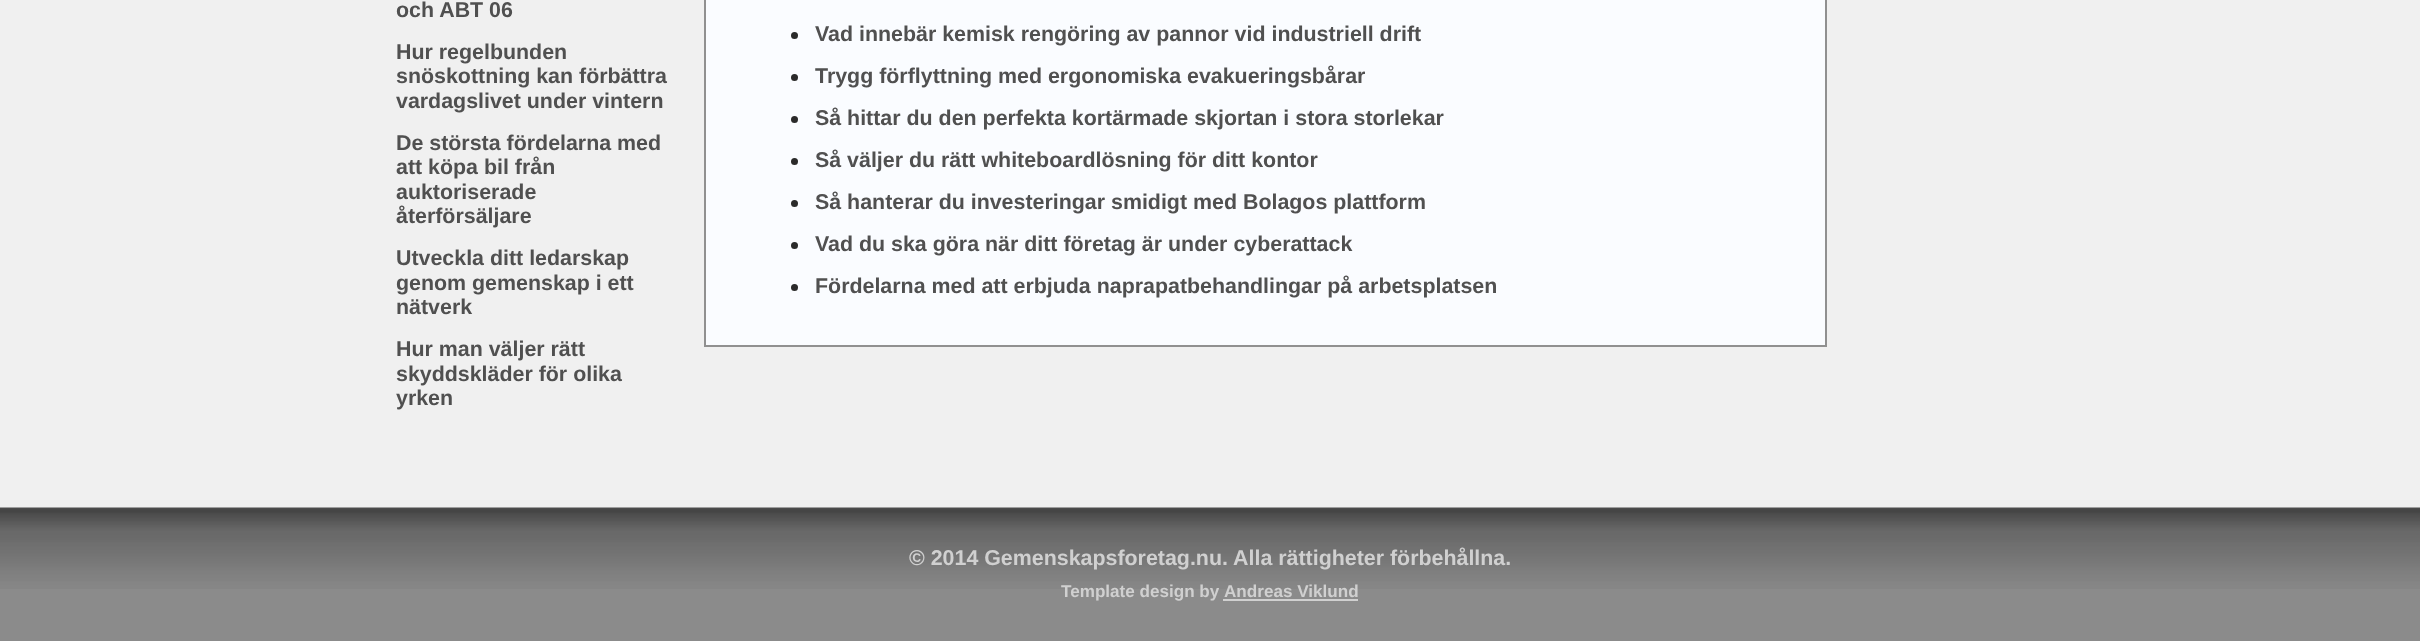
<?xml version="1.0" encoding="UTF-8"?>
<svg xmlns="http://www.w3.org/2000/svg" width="2420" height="641">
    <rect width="100%" height="100%" fill="#F0F0F0"/>
    <text font-family="Liberation Sans" font-size="21.4" font-weight="700" fill="#505050">
        <tspan x="396" y="17">och ABT 06</tspan>
        <tspan x="396" y="59">Hur regelbunden</tspan>
        <tspan x="396" y="83">snöskottning kan förbättra</tspan>
        <tspan x="396" y="108">vardagslivet under vintern</tspan>
        <tspan x="396" y="150">De största fördelarna med</tspan>
        <tspan x="396" y="174">att köpa bil från</tspan>
        <tspan x="396" y="199">auktoriserade</tspan>
        <tspan x="396" y="223">återförsäljare</tspan>
        <tspan x="396" y="265">Utveckla ditt ledarskap</tspan>
        <tspan x="396" y="290">genom gemenskap i ett</tspan>
        <tspan x="396" y="314">nätverk</tspan>
        <tspan x="396" y="356">Hur man väljer rätt</tspan>
        <tspan x="396" y="381">skyddskläder för olika</tspan>
        <tspan x="396" y="405">yrken</tspan>
    </text>
    <rect x="705" y="-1" width="1121" height="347" fill="#FAFCFF" stroke="#909090" stroke-width="2"/>
    <circle cx="794.5" cy="35.5" r="3.5" fill="#2A2A2A"/>
    <text x="815" y="41" font-family="Liberation Sans" font-size="21.4" font-weight="700" fill="#505050">Vad innebär kemisk rengöring av pannor vid industriell drift</text>
    <circle cx="794.5" cy="77.5" r="3.5" fill="#2A2A2A"/>
    <text x="815" y="83" font-family="Liberation Sans" font-size="21.4" font-weight="700" fill="#505050">Trygg förflyttning med ergonomiska evakueringsbårar</text>
    <circle cx="794.5" cy="119.5" r="3.5" fill="#2A2A2A"/>
    <text x="815" y="125" font-family="Liberation Sans" font-size="21.4" font-weight="700" fill="#505050">Så hittar du den perfekta kortärmade skjortan i stora storlekar</text>
    <circle cx="794.5" cy="161.5" r="3.5" fill="#2A2A2A"/>
    <text x="815" y="167" font-family="Liberation Sans" font-size="21.4" font-weight="700" fill="#505050">Så väljer du rätt whiteboardlösning för ditt kontor</text>
    <circle cx="794.5" cy="203.5" r="3.5" fill="#2A2A2A"/>
    <text x="815" y="209" font-family="Liberation Sans" font-size="21.4" font-weight="700" fill="#505050">Så hanterar du investeringar smidigt med Bolagos plattform</text>
    <circle cx="794.5" cy="245.5" r="3.5" fill="#2A2A2A"/>
    <text x="815" y="251" font-family="Liberation Sans" font-size="21.4" font-weight="700" fill="#505050">Vad du ska göra när ditt företag är under cyberattack</text>
    <circle cx="794.5" cy="287.5" r="3.5" fill="#2A2A2A"/>
    <text x="815" y="293" font-family="Liberation Sans" font-size="21.4" font-weight="700" fill="#505050">Fördelarna med att erbjuda naprapatbehandlingar på arbetsplatsen</text>
    <rect x="0" y="589" width="2420" height="52" fill="#8B8B8B"/>
    <image x="0" y="507" width="2420" height="82" href="img_01.png"/>
    <text x="909" y="565" font-family="Liberation Sans" font-size="21.4" font-weight="700" fill="#D0D0D0">© 2014 Gemenskapsforetag.nu. Alla rättigheter förbehållna.</text>
    <text x="1061" y="597" font-family="Liberation Sans" font-size="17.1" font-weight="700" fill="#D0D0D0">Template design by</text>
    <rect x="1223" y="599" width="135" height="2" fill="#D0D0D0"/>
    <text x="1224" y="597" font-family="Liberation Sans" font-size="17.1" font-weight="700" fill="#D0D0D0">Andreas Viklund</text>
</svg>
